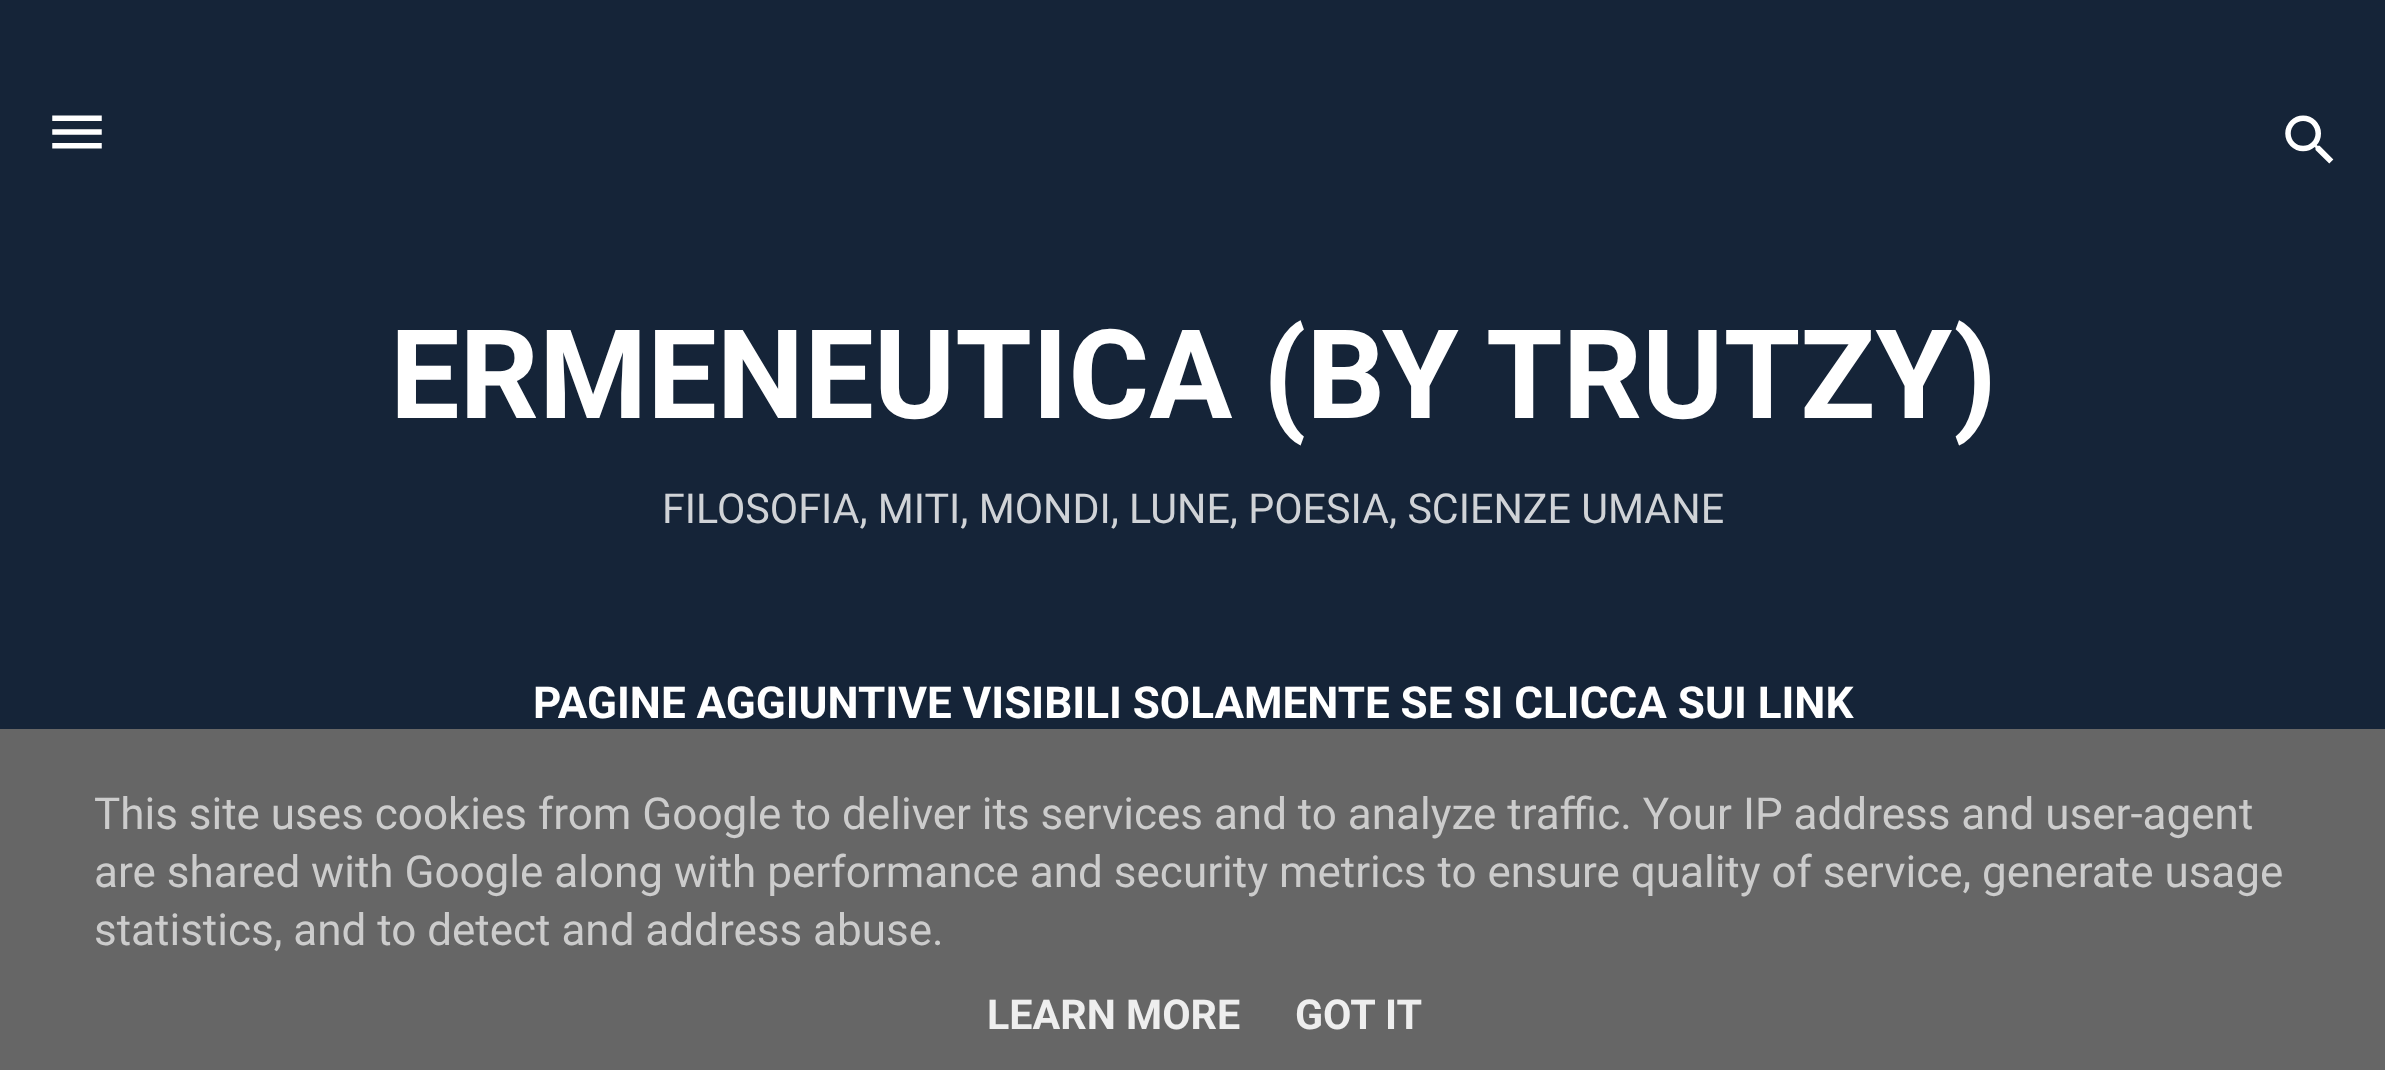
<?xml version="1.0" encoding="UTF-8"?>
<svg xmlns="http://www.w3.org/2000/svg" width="2385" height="1070">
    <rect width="100%" height="100%" fill="#152438"/>
    <image x="52" y="115" width="50" height="34" href="img_01.png"/>
    <image x="2285" y="115" width="49" height="49" href="img_02.png"/>
    <text x="390" y="418" font-family="Roboto" font-size="123.75" font-weight="700" fill="#FFFFFF">ERMENEUTICA (BY TRUTZY)</text>
    <text x="662" y="523" font-family="Roboto" font-size="41.25" fill="#D0D3D7">FILOSOFIA, MITI, MONDI, LUNE, POESIA, SCIENZE UMANE</text>
    <text x="533" y="718" font-family="Roboto" font-size="44" font-weight="700" fill="#FFFFFF">PAGINE AGGIUNTIVE VISIBILI SOLAMENTE SE SI CLICCA SUI LINK</text>
    <rect x="0" y="729" width="2385" height="341" fill="#666666"/>
    <text font-family="Roboto" font-size="44" fill="#CCCCCC">
        <tspan x="94" y="829">This site uses cookies from Google to deliver its services and to analyze traffic. Your IP address and user-agent</tspan>
        <tspan x="94" y="887">are shared with Google along with performance and security metrics to ensure quality of service, generate usage</tspan>
        <tspan x="94" y="945">statistics, and to detect and address abuse.</tspan>
    </text>
    <text x="987" y="1029" font-family="Roboto" font-size="41.25" font-weight="700" fill="#EEEEEE">LEARN MORE</text>
    <text x="1295" y="1029" font-family="Roboto" font-size="41.25" font-weight="700" fill="#EEEEEE">GOT IT</text>
</svg>
